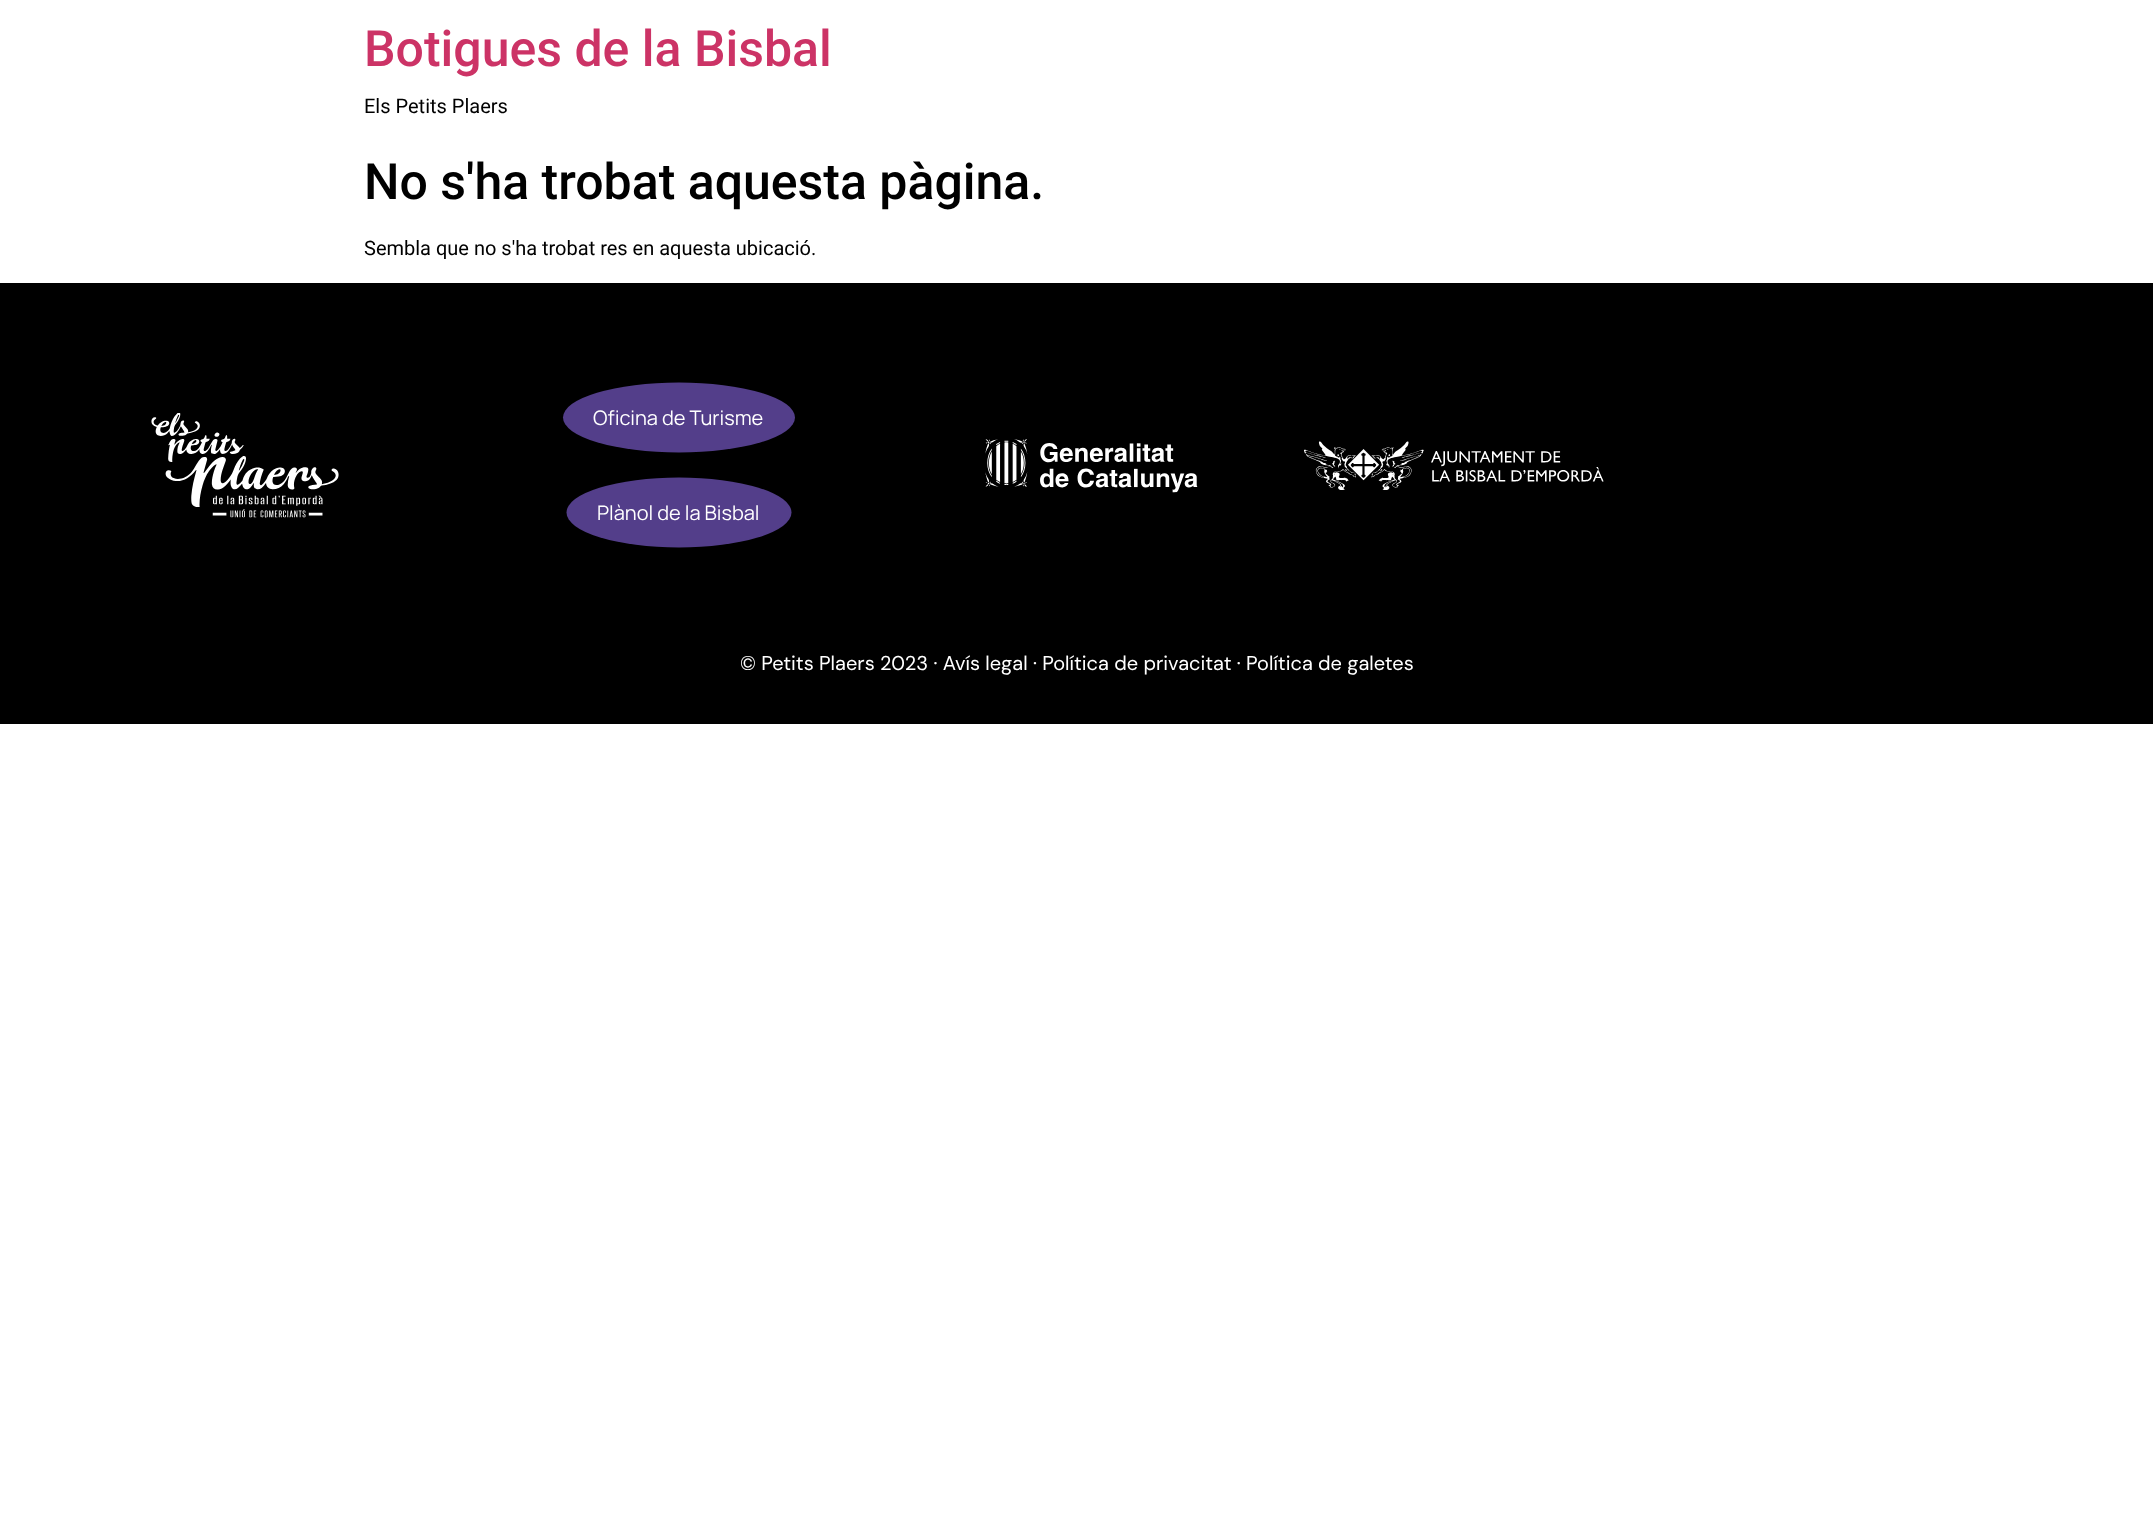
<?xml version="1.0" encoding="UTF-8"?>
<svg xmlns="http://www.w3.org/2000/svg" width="2153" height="1532">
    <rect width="100%" height="100%" fill="#FFFFFF"/>
    <text x="364" y="66" font-family="Roboto" font-size="50" font-weight="500" fill="#CC3366">Botigues de la Bisbal</text>
    <text x="364" y="113" font-family="Roboto" font-size="20" fill="#000000">Els Petits Plaers</text>
    <text x="364" y="199" font-family="Roboto" font-size="50" font-weight="500" fill="#000000">No s'ha trobat aquesta pàgina.</text>
    <text x="364" y="255" font-family="Roboto" font-size="20" fill="#000000">Sembla que no s'ha trobat res en aquesta ubicació.</text>
    <rect x="0" y="283" width="2153" height="441" fill="#000000"/>
    <image x="151" y="413" width="188" height="105" href="img_01.png"/>
    <ellipse cx="679" cy="417.5" rx="116" ry="35" fill="#533E8A"/>
    <text x="593" y="425" font-family="Manrope" font-size="20" fill="#FFFFFF">Oficina de Turisme</text>
    <ellipse cx="679" cy="512.5" rx="112.5" ry="35" fill="#533E8A"/>
    <text x="597" y="520" font-family="Manrope" font-size="20" fill="#FFFFFF">Plànol de la Bisbal</text>
    <image x="985" y="439" width="213" height="54" href="img_02.png"/>
    <image x="1304" y="441" width="300" height="49" href="img_03.png"/>
    <text x="740" y="670" font-family="DM Sans" font-size="20" fill="#FFFFFF">© Petits Plaers 2023 · Avís legal · Política de privacitat · Política de galetes</text>
</svg>
